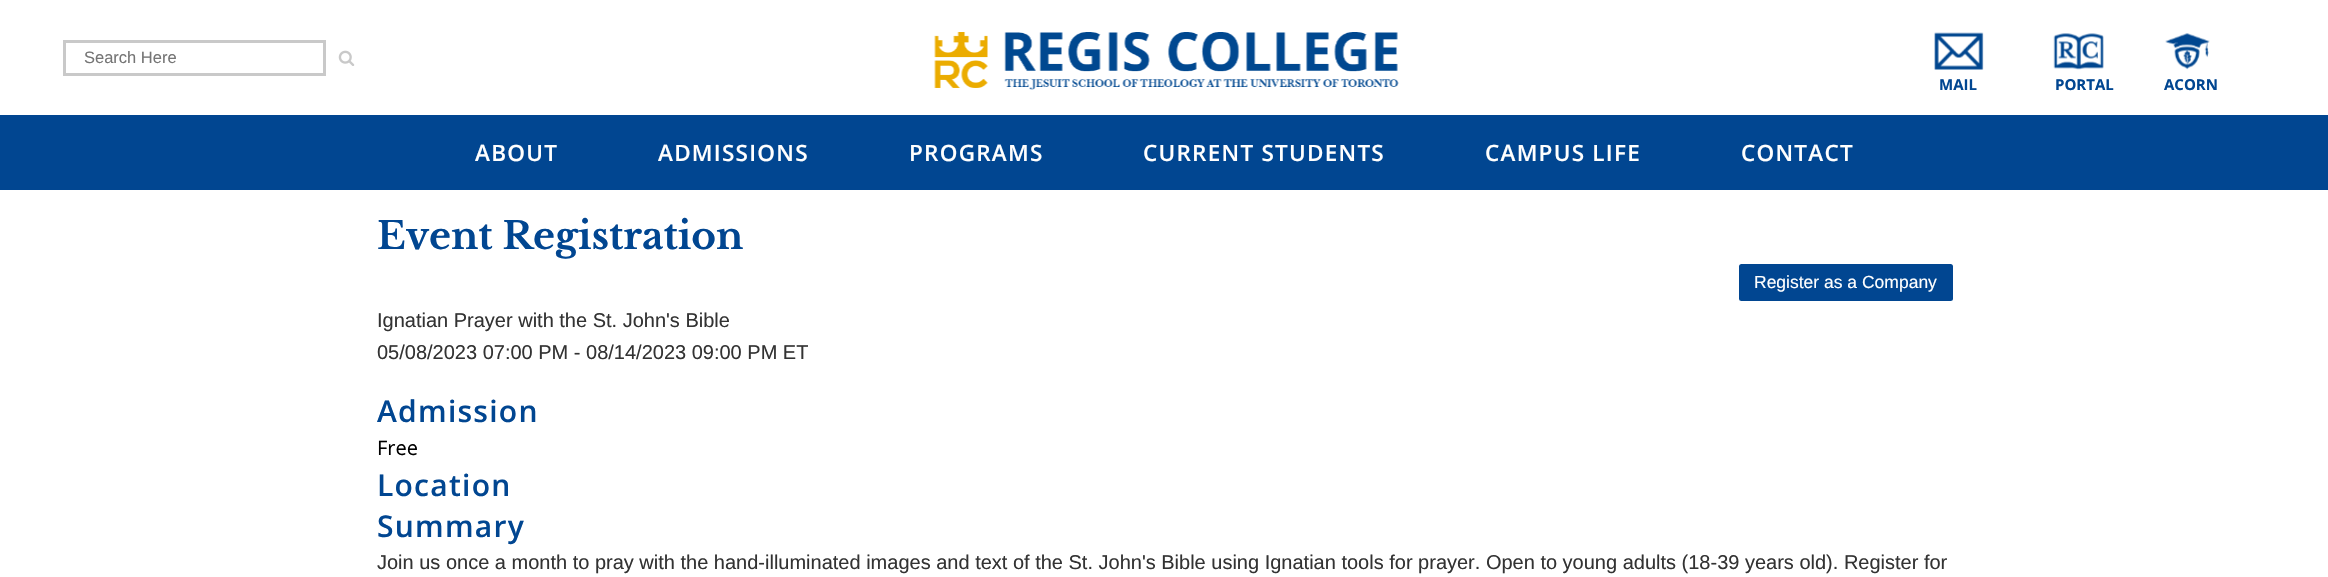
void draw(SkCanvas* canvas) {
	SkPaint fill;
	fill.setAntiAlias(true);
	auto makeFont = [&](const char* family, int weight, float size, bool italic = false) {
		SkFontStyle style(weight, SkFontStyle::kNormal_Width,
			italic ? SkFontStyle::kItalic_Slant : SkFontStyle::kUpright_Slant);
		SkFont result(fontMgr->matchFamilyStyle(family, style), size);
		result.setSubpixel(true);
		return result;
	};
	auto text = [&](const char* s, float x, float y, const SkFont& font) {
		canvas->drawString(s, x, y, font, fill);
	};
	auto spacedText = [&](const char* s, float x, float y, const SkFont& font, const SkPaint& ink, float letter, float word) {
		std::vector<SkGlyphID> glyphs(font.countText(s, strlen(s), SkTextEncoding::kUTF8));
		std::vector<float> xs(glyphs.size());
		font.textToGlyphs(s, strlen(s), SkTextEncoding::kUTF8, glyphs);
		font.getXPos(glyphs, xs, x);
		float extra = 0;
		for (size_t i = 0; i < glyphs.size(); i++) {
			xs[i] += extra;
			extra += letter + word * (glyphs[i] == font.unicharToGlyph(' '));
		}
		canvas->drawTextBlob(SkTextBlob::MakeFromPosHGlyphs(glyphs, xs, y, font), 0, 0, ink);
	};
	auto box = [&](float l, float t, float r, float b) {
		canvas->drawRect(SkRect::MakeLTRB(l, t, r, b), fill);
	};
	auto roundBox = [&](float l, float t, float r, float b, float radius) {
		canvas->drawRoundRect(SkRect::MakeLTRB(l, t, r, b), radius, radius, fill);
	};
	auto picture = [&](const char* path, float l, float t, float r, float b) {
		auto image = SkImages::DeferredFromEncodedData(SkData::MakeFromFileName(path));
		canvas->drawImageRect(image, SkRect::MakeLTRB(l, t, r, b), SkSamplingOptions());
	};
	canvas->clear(0xFFFFFFFF);
	fill.setStyle(SkPaint::kStroke_Style);
	fill.setStrokeWidth(3);
	fill.setColor(0xFFC9C9C9);
	canvas->drawRect(SkRect::MakeLTRB(64.5f, 41.5f, 324.5f, 74.5f), fill);
	picture("image0.png", 338, 50, 355, 66);
	picture("image1.png", 934, 32, 1399, 90);
	picture("image2.png", 1934, 32, 1984, 70);
	picture("image3.png", 2053, 33, 2104, 70);
	picture("image4.png", 2165, 33, 2210, 70);
	fill.setStyle(SkPaint::kFill_Style);
	fill.setColor(0xFF014691);
	box(0, 115, 2328, 190);
	roundBox(1739, 264, 1953, 301, 2.5f);
	auto font1 = makeFont("Liberation Sans", 400, 16.5f);
	fill.setColor(0xFF757575);
	text("Search Here", 84, 63, font1);
	auto font2 = makeFont("Open Sans", 700, 15);
	fill.setColor(0xFF014691);
	text("MAIL", 1939, 90, font2);
	text("PORTAL", 2055, 90, font2);
	text("ACORN", 2164, 90, font2);
	auto font3 = makeFont("Open Sans", 600, 22.5f);
	fill.setColor(0xFFFFFFFF);
	spacedText("ABOUT", 475, 161, font3, fill, 1.25f, 0);
	spacedText("ADMISSIONS", 658, 161, font3, fill, 1.25f, 0);
	spacedText("PROGRAMS", 909, 161, font3, fill, 1.25f, 0);
	spacedText("CURRENT STUDENTS", 1143, 161, font3, fill, 1.25f, 0);
	spacedText("CAMPUS LIFE", 1485, 161, font3, fill, 1.25f, 0);
	spacedText("CONTACT", 1741, 161, font3, fill, 1.25f, 0);
	auto font4 = makeFont("Libre Baskerville", 700, 37.5f);
	fill.setColor(0xFF014691);
	text("Event Registration", 377, 249, font4);
	auto font5 = makeFont("Liberation Sans", 400, 17.5f);
	fill.setColor(0xFFFFFFFF);
	text("Register as a Company", 1754, 288, font5);
	auto font6 = makeFont("Liberation Sans", 400, 20);
	fill.setColor(0xFF333333);
	text("Ignatian Prayer with the St. John's Bible", 377, 327, font6);
	text("05/08/2023 07:00 PM - 08/14/2023 09:00 PM ET", 377, 359, font6);
	auto font7 = makeFont("Open Sans", 600, 30);
	fill.setColor(0xFF014691);
	spacedText("Admission", 377, 422, font7, fill, 1.25f, 0);
	auto font8 = makeFont("Open Sans", 400, 20);
	fill.setColor(0xFF000000);
	text("Free", 377, 455, font8);
	fill.setColor(0xFF014691);
	spacedText("Location", 377, 496, font7, fill, 1.25f, 0);
	spacedText("Summary", 377, 537, font7, fill, 1.25f, 0);
	fill.setColor(0xFF333333);
	text("Join us once a month to pray with the hand-illuminated images and text of the St. John's Bible using Ignatian tools for prayer. Open to young adults (18-39 years old). Register for", 377, 569, font6);
}
